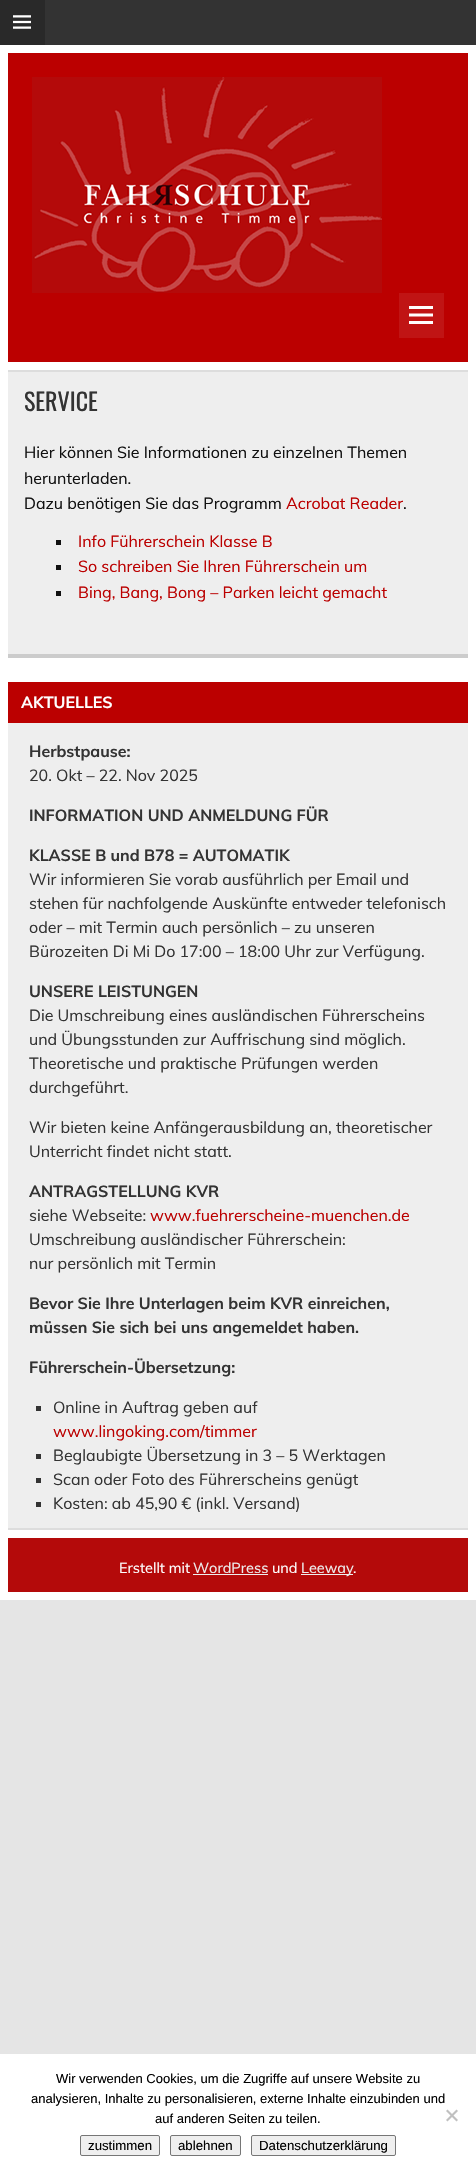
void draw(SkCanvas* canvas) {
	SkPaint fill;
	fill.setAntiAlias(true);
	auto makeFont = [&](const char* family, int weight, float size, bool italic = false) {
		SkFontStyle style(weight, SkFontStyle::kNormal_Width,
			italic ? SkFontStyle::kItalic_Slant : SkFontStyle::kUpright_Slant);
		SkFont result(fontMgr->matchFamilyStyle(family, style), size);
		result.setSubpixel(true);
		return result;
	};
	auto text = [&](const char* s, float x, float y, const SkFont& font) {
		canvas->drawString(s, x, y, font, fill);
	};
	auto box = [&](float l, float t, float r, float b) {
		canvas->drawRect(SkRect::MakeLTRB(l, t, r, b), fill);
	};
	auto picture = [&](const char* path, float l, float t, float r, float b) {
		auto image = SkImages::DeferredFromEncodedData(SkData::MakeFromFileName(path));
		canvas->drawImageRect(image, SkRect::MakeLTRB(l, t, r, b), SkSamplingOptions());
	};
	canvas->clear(0xFFE5E5E5);
	fill.setColor(0xFF333333);
	box(45, 0, 476, 45);
	fill.setColor(0xFF292929);
	box(0, 0, 45, 45);
	picture("image0.png", 13, 15, 31, 29);
	fill.setColor(0xFFFFFFFF);
	box(0, 45, 476, 1600);
	fill.setColor(0xFFBB0000);
	box(8, 53, 468, 362);
	picture("image1.png", 32, 77, 382, 293);
	fill.setColor(0xFFC01414);
	box(399, 293, 444, 338);
	picture("image2.png", 409, 306, 433, 324);
	fill.setColor(0xFFEEEEEE);
	box(8, 372, 468, 654);
	fill.setColor(0xFFDDDDDD);
	box(8, 370, 468, 372);
	fill.setColor(0xFFCCCCCC);
	box(8, 654, 468, 658);
	fill.setColor(0xFF111111);
	box(56, 540, 61, 545);
	box(56, 565, 61, 570);
	box(56, 591, 61, 596);
	fill.setColor(0xFFEEEEEE);
	box(8, 723, 468, 1528);
	fill.setColor(0xFFDDDDDD);
	box(8, 1528, 468, 1530);
	fill.setColor(0xFFBB0000);
	box(8, 682, 468, 723);
	fill.setColor(0xFF333333);
	box(36, 1406, 41, 1411);
	box(36, 1454, 41, 1459);
	box(36, 1478, 41, 1483);
	box(36, 1502, 41, 1507);
	fill.setColor(0xFFB40A0A);
	box(8, 1538, 468, 1592);
	fill.setColor(0xFFEEEEEE);
	box(193, 1574, 268, 1575);
	box(301, 1574, 353, 1575);
	fill.setColor(0xFFFFFFFF);
	box(0, 2054, 476, 2176);
	fill.setColor(0xFFC0C0C0);
	canvas->drawPath(SkPathBuilder().moveTo(456.5f, 2109.5f).lineTo(458, 2111).lineTo(447.5f, 2121.5f).lineTo(446, 2120).close().detach(), fill);
	canvas->drawPath(SkPathBuilder().moveTo(446, 2111).lineTo(447.5f, 2109.5f).lineTo(458, 2120).lineTo(456.5f, 2121.5f).close().detach(), fill);
	fill.setColor(0xFFEFEFEF);
	canvas->drawRoundRect(SkRect::MakeLTRB(80.5f, 2135.5f, 159.5f, 2155.5f), 1.5f, 1.5f, fill);
	fill.setStyle(SkPaint::kStroke_Style);
	fill.setStrokeWidth(1);
	fill.setColor(0xFF767676);
	canvas->drawRoundRect(SkRect::MakeLTRB(80.5f, 2135.5f, 159.5f, 2155.5f), 1.5f, 1.5f, fill);
	fill.setStyle(SkPaint::kFill_Style);
	fill.setColor(0xFFEFEFEF);
	canvas->drawRoundRect(SkRect::MakeLTRB(170.5f, 2135.5f, 240.5f, 2155.5f), 1.5f, 1.5f, fill);
	fill.setStyle(SkPaint::kStroke_Style);
	fill.setColor(0xFF767676);
	canvas->drawRoundRect(SkRect::MakeLTRB(170.5f, 2135.5f, 240.5f, 2155.5f), 1.5f, 1.5f, fill);
	fill.setStyle(SkPaint::kFill_Style);
	fill.setColor(0xFFEFEFEF);
	canvas->drawRoundRect(SkRect::MakeLTRB(251.5f, 2135.5f, 395.5f, 2155.5f), 1.5f, 1.5f, fill);
	fill.setStyle(SkPaint::kStroke_Style);
	fill.setColor(0xFF767676);
	canvas->drawRoundRect(SkRect::MakeLTRB(251.5f, 2135.5f, 395.5f, 2155.5f), 1.5f, 1.5f, fill);
	auto font1 = makeFont("Oswald", 400, 24);
	fill.setStyle(SkPaint::kFill_Style);
	fill.setColor(0xFF333333);
	text("SERVICE", 24, 411, font1);
	auto font2 = makeFont("Muli", 400, 16);
	fill.setColor(0xFF111111);
	text("Hier können Sie Informationen zu einzelnen Themen", 24, 458, font2);
	text("herunterladen.", 24, 484, font2);
	text("Dazu benötigen Sie das Programm", 24, 509, font2);
	fill.setColor(0xFFBB0000);
	text("Acrobat Reader", 286, 509, font2);
	fill.setColor(0xFF111111);
	text(".", 403, 509, font2);
	fill.setColor(0xFFBB0000);
	text("Info Führerschein Klasse B", 78, 547, font2);
	text("So schreiben Sie Ihren Führerschein um", 78, 572, font2);
	text("Bing, Bang, Bong – Parken leicht gemacht", 78, 598, font2);
	auto font3 = makeFont("Muli", 700, 16);
	fill.setColor(0xFFFFFFFF);
	text("AKTUELLES", 21, 708, font3);
	fill.setColor(0xFF333333);
	text("Herbstpause:", 29, 757, font3);
	text("20. Okt – 22. Nov 2025", 29, 781, font2);
	text("INFORMATION UND ANMELDUNG FÜR", 29, 821, font3);
	text("KLASSE B und B78 = AUTOMATIK", 29, 861, font3);
	text("Wir informieren Sie vorab ausführlich per Email und", 29, 885, font2);
	text("stehen für nachfolgende Auskünfte entweder telefonisch", 29, 909, font2);
	text("oder – mit Termin auch persönlich – zu unseren", 29, 933, font2);
	text("Bürozeiten Di Mi Do 17:00 – 18:00 Uhr zur Verfügung.", 29, 957, font2);
	text("UNSERE LEISTUNGEN", 29, 997, font3);
	text("Die Umschreibung eines ausländischen Führerscheins", 29, 1021, font2);
	text("und Übungsstunden zur Auffrischung sind möglich.", 29, 1045, font2);
	text("Theoretische und praktische Prüfungen werden", 29, 1069, font2);
	text("durchgeführt.", 29, 1093, font2);
	text("Wir bieten keine Anfängerausbildung an, theoretischer", 29, 1133, font2);
	text("Unterricht findet nicht statt.", 29, 1157, font2);
	text("ANTRAGSTELLUNG KVR", 29, 1197, font3);
	text("siehe Webseite:", 29, 1221, font2);
	fill.setColor(0xFFBB0000);
	text("www.fuehrerscheine-muenchen.de", 150, 1221, font2);
	fill.setColor(0xFF333333);
	text("Umschreibung ausländischer Führerschein:", 29, 1245, font2);
	text("nur persönlich mit Termin", 29, 1269, font2);
	text("Bevor Sie Ihre Unterlagen beim KVR einreichen,", 29, 1309, font3);
	text("müssen Sie sich bei uns angemeldet haben.", 29, 1333, font3);
	text("Führerschein-Übersetzung:", 29, 1373, font3);
	text("Online in Auftrag geben auf", 53, 1413, font2);
	fill.setColor(0xFFBB0000);
	text("www.lingoking.com/timmer", 53, 1437, font2);
	fill.setColor(0xFF333333);
	text("Beglaubigte Übersetzung in 3 – 5 Werktagen", 53, 1461, font2);
	text("Scan oder Foto des Führerscheins genügt", 53, 1485, font2);
	text("Kosten: ab 45,90 € (inkl. Versand)", 53, 1509, font2);
	auto font4 = makeFont("Muli", 400, 14.5f);
	fill.setColor(0xFFFFFFFF);
	text("Erstellt mit", 119, 1573, font4);
	fill.setColor(0xFFEEEEEE);
	text("WordPress", 193, 1573, font4);
	fill.setColor(0xFFFFFFFF);
	text("und", 272, 1573, font4);
	fill.setColor(0xFFEEEEEE);
	text("Leeway", 301, 1573, font4);
	fill.setColor(0xFFFFFFFF);
	text(".", 353, 1573, font4);
	auto font5 = makeFont("Liberation Sans", 400, 13);
	fill.setColor(0xFF000000);
	text("Wir verwenden Cookies, um die Zugriffe auf unsere Website zu", 56, 2083, font5);
	text("analysieren, Inhalte zu personalisieren, externe Inhalte einzubinden und", 31, 2103, font5);
	text("auf anderen Seiten zu teilen.", 155, 2123, font5);
	auto font6 = makeFont("Liberation Sans", 400, 13.25f);
	text("zustimmen", 88, 2150, font6);
	text("ablehnen", 178, 2150, font6);
	text("Datenschutzerklärung", 259, 2150, font6);
}
